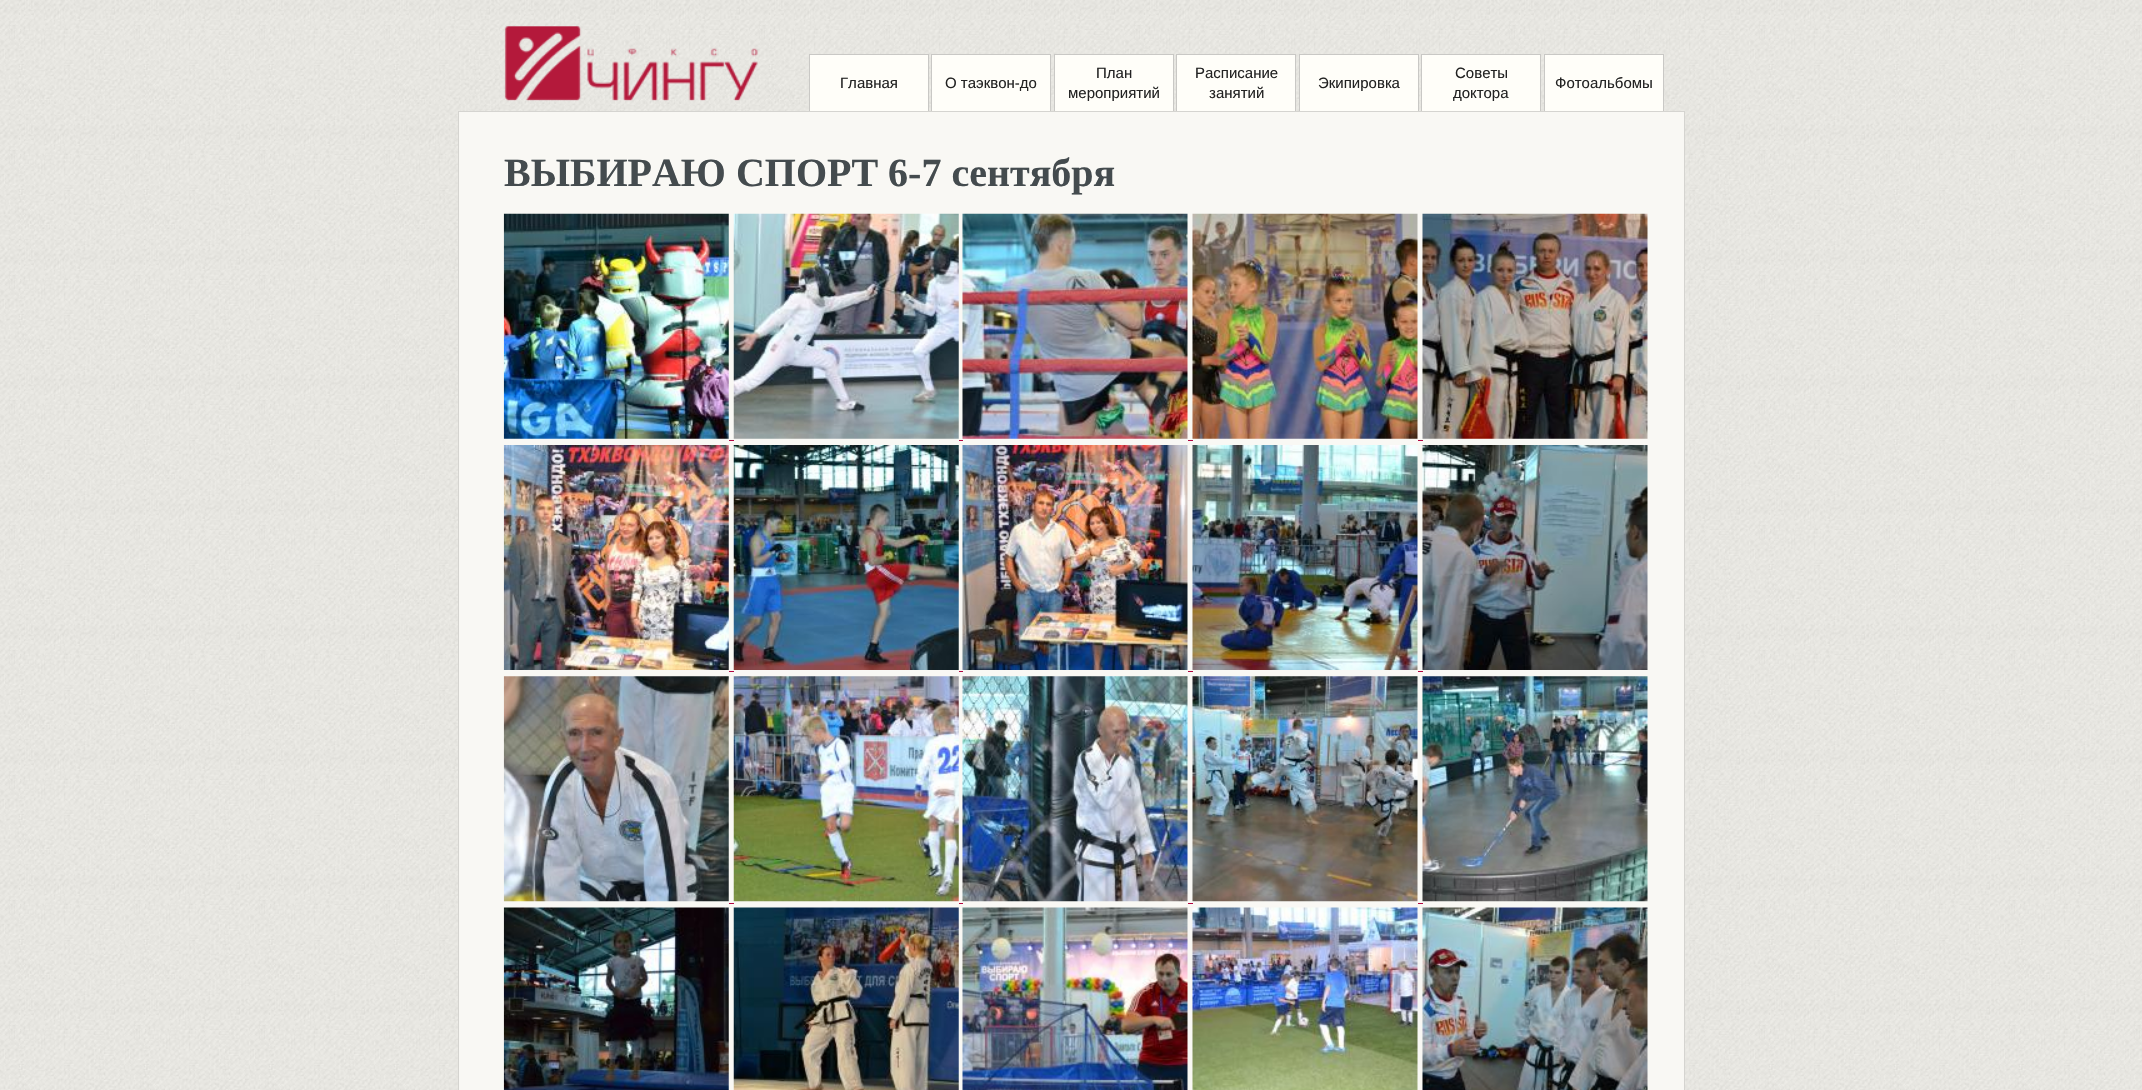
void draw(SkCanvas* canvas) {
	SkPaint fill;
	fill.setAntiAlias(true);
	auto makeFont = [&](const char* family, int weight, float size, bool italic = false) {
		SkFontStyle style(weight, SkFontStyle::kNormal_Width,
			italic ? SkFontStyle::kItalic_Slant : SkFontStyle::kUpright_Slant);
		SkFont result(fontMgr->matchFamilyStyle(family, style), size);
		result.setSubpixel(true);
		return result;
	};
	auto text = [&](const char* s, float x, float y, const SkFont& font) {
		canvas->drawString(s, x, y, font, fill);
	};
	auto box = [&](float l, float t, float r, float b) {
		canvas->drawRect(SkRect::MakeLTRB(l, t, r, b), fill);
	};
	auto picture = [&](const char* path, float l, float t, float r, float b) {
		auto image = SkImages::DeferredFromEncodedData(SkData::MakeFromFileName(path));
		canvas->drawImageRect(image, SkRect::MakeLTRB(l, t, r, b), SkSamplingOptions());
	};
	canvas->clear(0xFFFFFFFF);
	picture("image0.png", 0, 0, 2142, 1090);
	picture("image1.png", 504, 26, 758, 101);
	fill.setColor(0xFFFFFEF9);
	box(810, 55, 928, 111);
	fill.setColor(0xFFC9C8C5);
	box(809, 54, 929, 55);
	box(928, 54, 929, 111);
	box(809, 54, 810, 111);
	fill.setColor(0xFFFFFEF9);
	box(932, 55, 1050, 111);
	fill.setColor(0xFFC9C8C5);
	box(931, 54, 1051, 55);
	box(1050, 54, 1051, 111);
	box(931, 54, 932, 111);
	fill.setColor(0xFFFFFEF9);
	box(1055, 55, 1173, 111);
	fill.setColor(0xFFC9C8C5);
	box(1054, 54, 1174, 55);
	box(1173, 54, 1174, 111);
	box(1054, 54, 1055, 111);
	fill.setColor(0xFFFFFEF9);
	box(1177, 55, 1295, 111);
	fill.setColor(0xFFC9C8C5);
	box(1176, 54, 1296, 55);
	box(1295, 54, 1296, 111);
	box(1176, 54, 1177, 111);
	fill.setColor(0xFFFFFEF9);
	box(1300, 55, 1418, 111);
	fill.setColor(0xFFC9C8C5);
	box(1299, 54, 1419, 55);
	box(1418, 54, 1419, 111);
	box(1299, 54, 1300, 111);
	fill.setColor(0xFFFFFEF9);
	box(1422, 55, 1540, 111);
	fill.setColor(0xFFC9C8C5);
	box(1421, 54, 1541, 55);
	box(1540, 54, 1541, 111);
	box(1421, 54, 1422, 111);
	fill.setColor(0xFFFFFEF9);
	box(1545, 55, 1663, 111);
	fill.setColor(0xFFC9C8C5);
	box(1544, 54, 1664, 55);
	box(1663, 54, 1664, 111);
	box(1544, 54, 1545, 111);
	fill.setColor(0xFFF9F8F4);
	canvas->drawRect(SkRect::MakeLTRB(458.5f, 111.5f, 1684.5f, 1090.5f), fill);
	fill.setStyle(SkPaint::kStroke_Style);
	fill.setStrokeWidth(1);
	fill.setColor(0xFFD5D4D0);
	canvas->drawRect(SkRect::MakeLTRB(458.5f, 111.5f, 1684.5f, 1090.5f), fill);
	picture("image2.png", 503, 213, 729, 439);
	picture("image3.png", 733, 213, 959, 439);
	picture("image4.png", 962, 213, 1188, 439);
	picture("image5.png", 1192, 213, 1418, 439);
	picture("image6.png", 1422, 213, 1648, 439);
	fill.setStyle(SkPaint::kFill_Style);
	fill.setColor(0xFFB1053F);
	box(729, 440, 734, 441);
	box(959, 440, 963, 441);
	box(1188, 440, 1193, 441);
	box(1418, 440, 1423, 441);
	picture("image7.png", 503, 445, 729, 670);
	picture("image8.png", 733, 445, 959, 670);
	picture("image9.png", 962, 445, 1188, 670);
	picture("image10.png", 1192, 445, 1418, 670);
	picture("image11.png", 1422, 445, 1648, 670);
	box(729, 671, 734, 672);
	box(959, 671, 963, 672);
	box(1188, 671, 1193, 672);
	box(1418, 671, 1423, 672);
	picture("image12.png", 503, 676, 729, 902);
	picture("image13.png", 733, 676, 959, 902);
	picture("image14.png", 962, 676, 1188, 902);
	picture("image15.png", 1192, 676, 1418, 902);
	picture("image16.png", 1422, 676, 1648, 902);
	box(729, 903, 734, 904);
	box(959, 903, 963, 904);
	box(1188, 903, 1193, 904);
	box(1418, 903, 1423, 904);
	picture("image17.png", 503, 907, 729, 1090);
	picture("image18.png", 733, 907, 959, 1090);
	picture("image19.png", 962, 907, 1188, 1090);
	picture("image20.png", 1192, 907, 1418, 1090);
	picture("image21.png", 1422, 907, 1648, 1090);
	auto font1 = makeFont("Liberation Sans", 400, 15);
	fill.setColor(0xFF232323);
	text("Главная", 840, 88, font1);
	text("О таэквон-до", 945, 88, font1);
	text("План", 1096, 78, font1);
	text("мероприятий", 1068, 98, font1);
	text("Расписание", 1195, 78, font1);
	text("занятий", 1209, 98, font1);
	text("Экипировка", 1318, 88, font1);
	text("Советы", 1455, 78, font1);
	text("доктора", 1453, 98, font1);
	text("Фотоальбомы", 1555, 88, font1);
	auto font2 = makeFont("Liberation Serif", 700, 40);
	fill.setColor(0xFF444B4E);
	text("ВЫБИРАЮ СПОРТ 6-7 сентября", 504, 186, font2);
}
